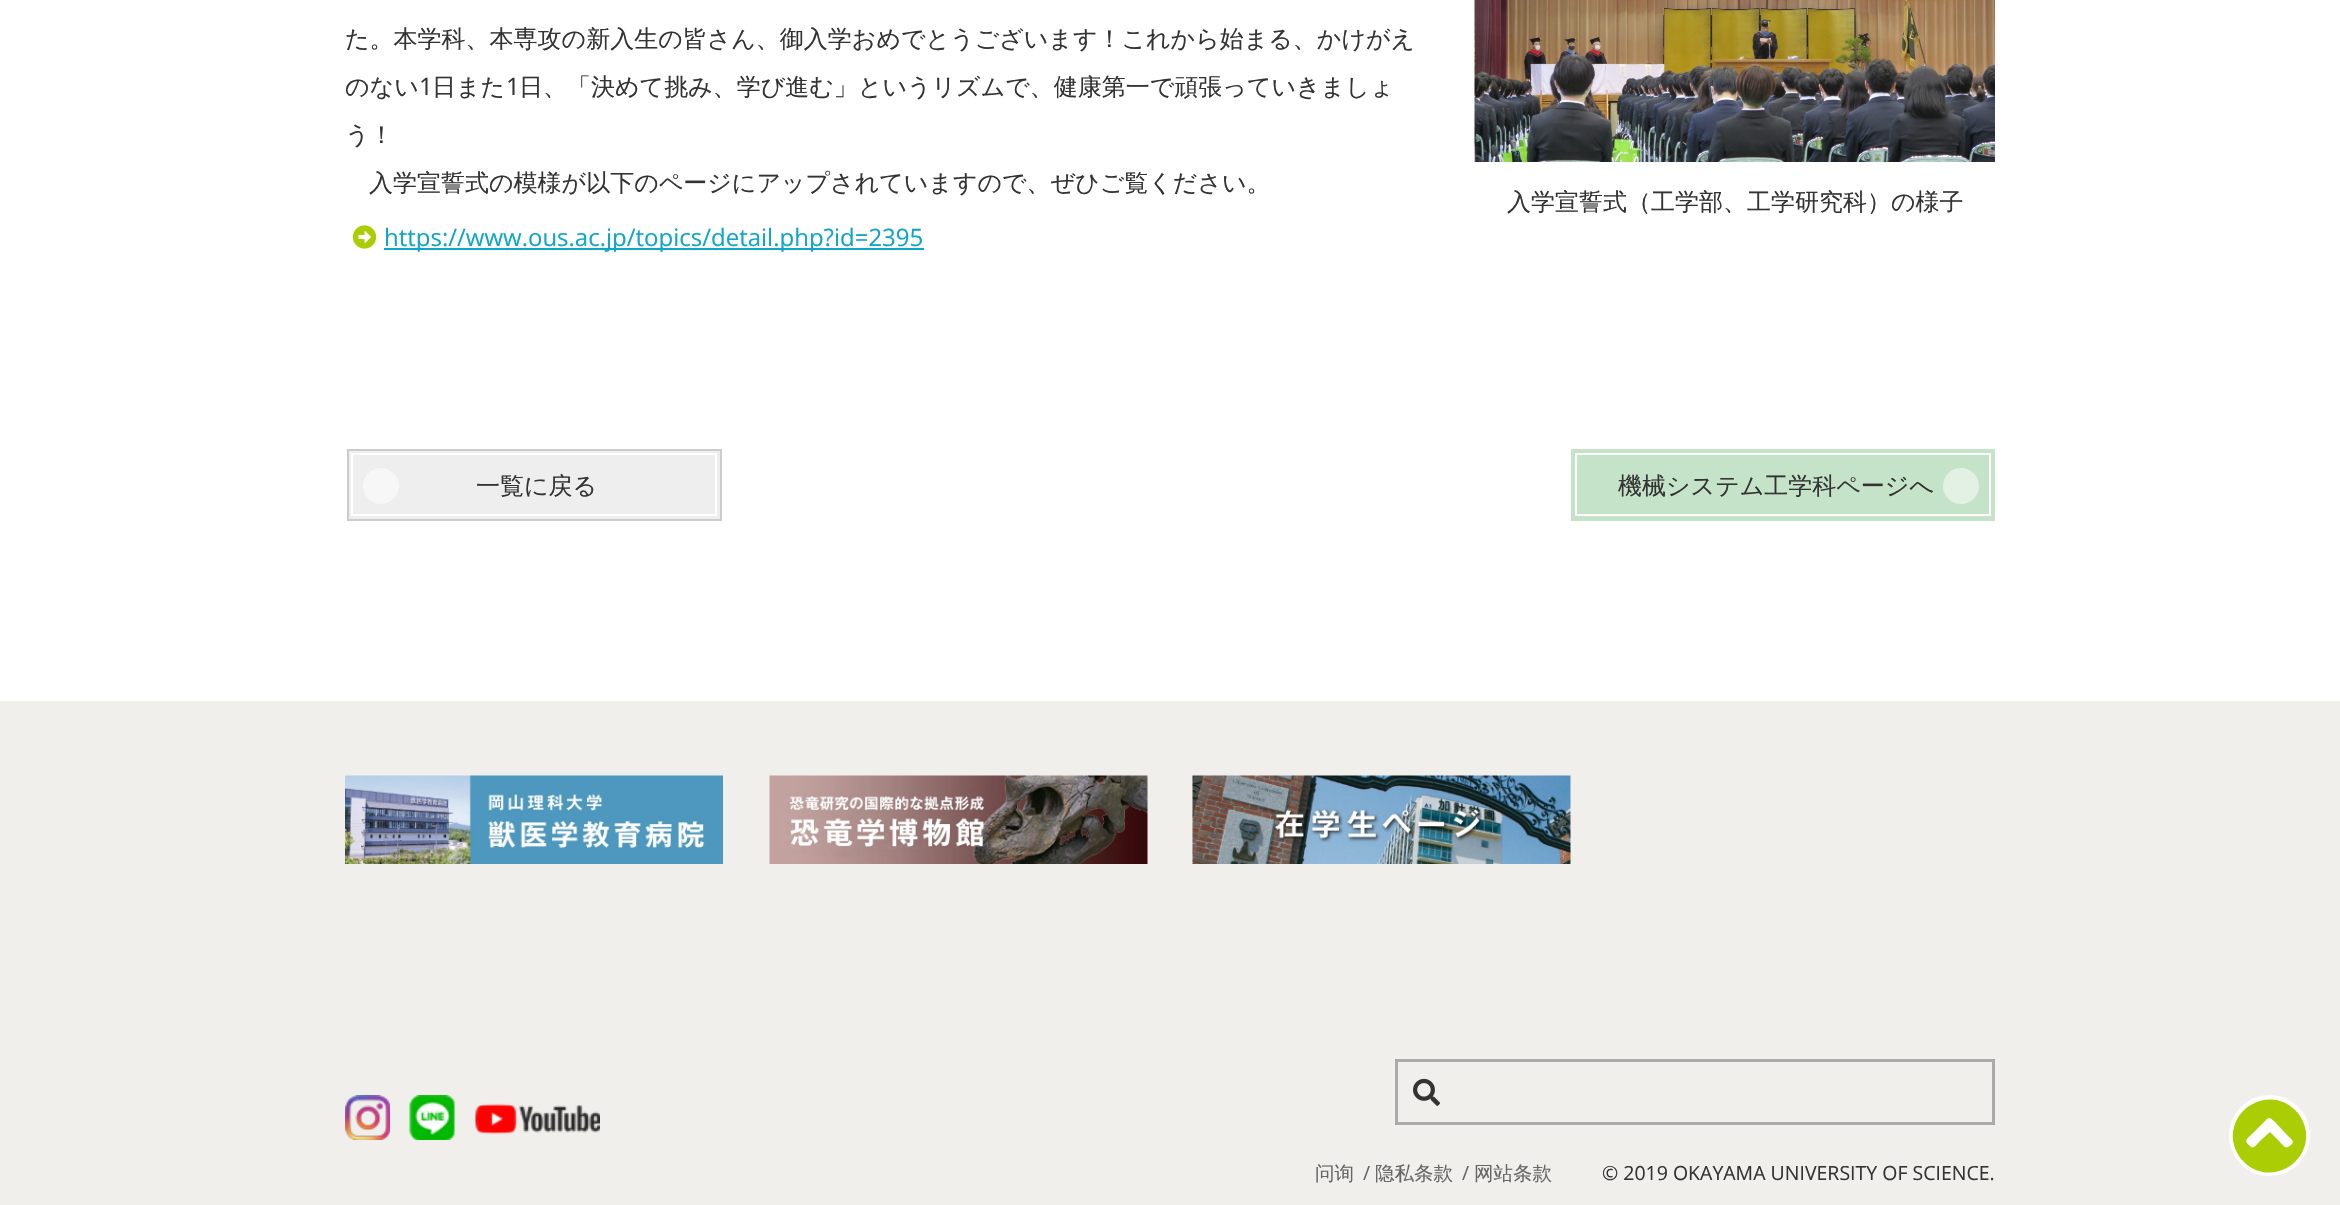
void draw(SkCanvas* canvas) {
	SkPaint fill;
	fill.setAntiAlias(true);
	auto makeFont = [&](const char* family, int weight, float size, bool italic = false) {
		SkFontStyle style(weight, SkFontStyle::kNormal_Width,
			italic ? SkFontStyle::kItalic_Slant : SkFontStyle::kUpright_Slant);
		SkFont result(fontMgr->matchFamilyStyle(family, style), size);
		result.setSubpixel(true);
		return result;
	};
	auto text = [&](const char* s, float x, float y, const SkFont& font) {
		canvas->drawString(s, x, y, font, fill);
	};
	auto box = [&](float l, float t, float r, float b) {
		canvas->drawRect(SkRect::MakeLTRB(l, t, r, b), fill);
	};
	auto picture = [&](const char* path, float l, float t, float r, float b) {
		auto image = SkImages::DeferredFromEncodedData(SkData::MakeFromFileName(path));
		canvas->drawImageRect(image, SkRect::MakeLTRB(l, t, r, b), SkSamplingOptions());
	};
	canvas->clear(0xFFFFFFFF);
	picture("image0.png", 352, 225, 377, 249);
	fill.setColor(0xFF0DA5C9);
	box(384, 248, 924, 250);
	picture("image1.png", 1474, 0, 1995, 162);
	fill.setColor(0xFFEEEEEE);
	canvas->drawRect(SkRect::MakeLTRB(348, 450, 721, 520), fill);
	fill.setStyle(SkPaint::kStroke_Style);
	fill.setStrokeWidth(2);
	fill.setColor(0xFFCCCCCC);
	canvas->drawRect(SkRect::MakeLTRB(348, 450, 721, 520), fill);
	fill.setColor(0xFFFFFFFF);
	canvas->drawRect(SkRect::MakeLTRB(352, 454, 716, 515), fill);
	fill.setStyle(SkPaint::kFill_Style);
	fill.setColor(0xFFF7F7F7);
	canvas->drawCircle(381, 486, 18, fill);
	fill.setColor(0xFFC5E3C8);
	box(1571, 449, 1995, 521);
	fill.setStyle(SkPaint::kStroke_Style);
	fill.setColor(0xFFFFFFFF);
	canvas->drawRect(SkRect::MakeLTRB(1576, 454, 1990, 515), fill);
	fill.setStyle(SkPaint::kFill_Style);
	fill.setColor(0xFFE2F1E4);
	canvas->drawCircle(1961, 486, 18, fill);
	fill.setColor(0xFFF1EFEC);
	box(0, 701, 2340, 1205);
	picture("image2.png", 345, 775, 723, 864);
	picture("image3.png", 769, 775, 1148, 864);
	picture("image4.png", 1192, 775, 1571, 864);
	picture("image5.png", 345, 1095, 390, 1140);
	picture("image6.png", 409, 1095, 455, 1140);
	picture("image7.png", 475, 1103, 600, 1135);
	fill.setStyle(SkPaint::kStroke_Style);
	fill.setStrokeWidth(3);
	fill.setColor(0xFFAAAAAA);
	canvas->drawRect(SkRect::MakeLTRB(1396.5f, 1060.5f, 1993.5f, 1123.5f), fill);
	picture("image8.png", 1413, 1078, 1440, 1106);
	fill.setStyle(SkPaint::kFill_Style);
	fill.setColor(0xFFFFFFFF);
	canvas->drawCircle(2269.5f, 1135.5f, 39, fill);
	fill.setStyle(SkPaint::kStroke_Style);
	canvas->drawCircle(2269.5f, 1135.5f, 39, fill);
	fill.setStyle(SkPaint::kFill_Style);
	fill.setColor(0xFFABCD04);
	canvas->drawPath(SkPathBuilder().moveTo(2244, 1162).cubicTo(2238, 1156, 2234, 1148, 2233, 1140).cubicTo(2230, 1106, 2271, 1086, 2295, 1110).cubicTo(2301, 1116, 2305, 1124, 2306, 1132).cubicTo(2309, 1166, 2268, 1186, 2244, 1162).close().moveTo(2267, 1119).lineTo(2254, 1132).cubicTo(2247, 1139, 2243, 1140, 2250, 1146).cubicTo(2253, 1150, 2257, 1144, 2260, 1141).lineTo(2270, 1132).lineTo(2279, 1141).cubicTo(2281, 1143, 2285, 1149, 2288, 1147).lineTo(2291, 1145).cubicTo(2295, 1141, 2292, 1140, 2288, 1136).lineTo(2275, 1122).cubicTo(2273, 1121, 2270, 1116, 2267, 1119).close().detach(), fill);
	auto font1 = makeFont("WenQuanYi Zen Hei", 500, 24);
	fill.setColor(0xFF333333);
	text("た。本学科、本専攻の新入生の皆さん、御入学おめでとうございます！これから始まる、かけがえ", 345, 47, font1);
	text("のない", 345, 95, font1);
	auto font2 = makeFont("Open Sans", 400, 24);
	text("1", 419, 95, font2);
	text("日また", 432, 95, font1);
	text("1", 506, 95, font2);
	text("日、「決めて挑み、学び進む」というリズムで、健康第一で頑張っていきましょ", 519, 95, font1);
	text("う！", 345, 143, font1);
	text("入学宣誓式の模様が以下のページにアップされていますので、ぜひご覧ください。", 369, 191, font1);
	fill.setColor(0xFF0DA5C9);
	text("https://www.ous.ac.jp/topics/detail.php?id=2395", 384, 246, font2);
	fill.setColor(0xFF333333);
	text("入学宣誓式（工学部、工学研究科）の様子", 1507, 210, font1);
	text("一覧に戻る", 476, 494, font1);
	text("機械システム工学科ページへ", 1618, 494, font1);
	auto font3 = makeFont("WenQuanYi Zen Hei", 500, 19.5f);
	fill.setColor(0xFF666666);
	text("问询", 1315, 1180, font3);
	auto font4 = makeFont("Open Sans", 400, 19.5f);
	text("/", 1363, 1180, font4);
	text("隐私条款", 1375, 1180, font3);
	text("/", 1462, 1180, font4);
	text("网站条款", 1474, 1180, font3);
	fill.setColor(0xFF333333);
	text("© 2019 OKAYAMA UNIVERSITY OF SCIENCE.", 1602, 1180, font4);
}
